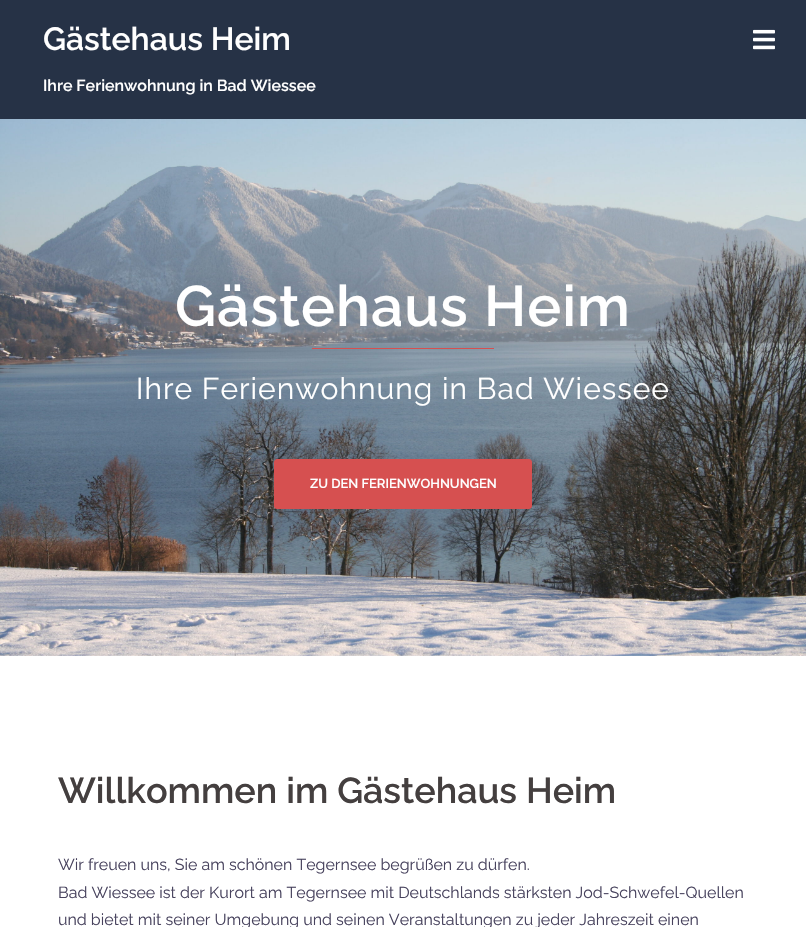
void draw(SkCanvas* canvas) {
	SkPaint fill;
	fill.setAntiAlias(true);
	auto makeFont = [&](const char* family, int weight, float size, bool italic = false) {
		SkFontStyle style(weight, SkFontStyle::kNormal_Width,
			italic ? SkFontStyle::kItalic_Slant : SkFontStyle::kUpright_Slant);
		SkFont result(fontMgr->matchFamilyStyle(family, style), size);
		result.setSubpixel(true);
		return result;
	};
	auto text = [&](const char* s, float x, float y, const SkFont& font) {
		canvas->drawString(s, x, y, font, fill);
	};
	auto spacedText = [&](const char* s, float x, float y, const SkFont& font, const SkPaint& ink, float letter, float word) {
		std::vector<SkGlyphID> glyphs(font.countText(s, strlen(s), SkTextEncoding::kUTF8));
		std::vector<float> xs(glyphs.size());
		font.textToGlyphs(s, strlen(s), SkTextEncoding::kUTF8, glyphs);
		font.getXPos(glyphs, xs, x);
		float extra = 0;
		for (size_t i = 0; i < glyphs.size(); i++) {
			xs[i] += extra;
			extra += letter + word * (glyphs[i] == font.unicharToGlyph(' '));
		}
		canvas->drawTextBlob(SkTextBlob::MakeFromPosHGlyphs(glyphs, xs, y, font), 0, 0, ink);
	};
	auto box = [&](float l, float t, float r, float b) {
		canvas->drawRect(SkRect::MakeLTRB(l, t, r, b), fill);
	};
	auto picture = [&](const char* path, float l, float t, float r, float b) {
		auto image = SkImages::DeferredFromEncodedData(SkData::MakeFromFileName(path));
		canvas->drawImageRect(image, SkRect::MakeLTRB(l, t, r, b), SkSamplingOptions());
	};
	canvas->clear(0xFFFFFFFF);
	fill.setColor(0xFF263246);
	box(0, 0, 806, 119);
	picture("image0.png", 753, 29, 775, 50);
	picture("image1.png", 0, 119, 806, 656);
	fill.setColor(0xFFD65050);
	box(312, 348, 494, 349);
	canvas->drawRoundRect(SkRect::MakeLTRB(274.5f, 459.5f, 531.5f, 508.5f), 2.5f, 2.5f, fill);
	fill.setStyle(SkPaint::kStroke_Style);
	fill.setStrokeWidth(1);
	canvas->drawRoundRect(SkRect::MakeLTRB(274.5f, 459.5f, 531.5f, 508.5f), 2.5f, 2.5f, fill);
	auto font1 = makeFont("Raleway", 600, 32);
	fill.setStyle(SkPaint::kFill_Style);
	fill.setColor(0xFFFFFFFF);
	text("Gästehaus Heim", 43, 50, font1);
	auto font2 = makeFont("Raleway", 600, 16);
	text("Ihre Ferienwohnung in Bad Wiessee", 43, 91, font2);
	auto font3 = makeFont("Raleway", 600, 57);
	spacedText("Gästehaus Heim", 175, 326, font3, fill, 1, 0);
	auto font4 = makeFont("Raleway", 400, 30);
	spacedText("Ihre Ferienwohnung in Bad Wiessee", 136, 399, font4, fill, 1, 0);
	auto font5 = makeFont("Raleway", 600, 13);
	text("ZU DEN FERIENWOHNUNGEN", 310, 488, font5);
	auto font6 = makeFont("Raleway", 600, 36);
	fill.setColor(0xFF443F3F);
	text("Willkommen im Gästehaus Heim", 58, 803, font6);
	auto font7 = makeFont("Raleway", 400, 16);
	fill.setColor(0xFF47425D);
	text("Wir freuen uns, Sie am schönen Tegernsee begrüßen zu dürfen.", 58, 870, font7);
	text("Bad Wiessee ist der Kurort am Tegernsee mit Deutschlands stärksten Jod-Schwefel-Quellen", 58, 898, font7);
	text("und bietet mit seiner Umgebung und seinen Veranstaltungen zu jeder Jahreszeit einen", 58, 925, font7);
}
